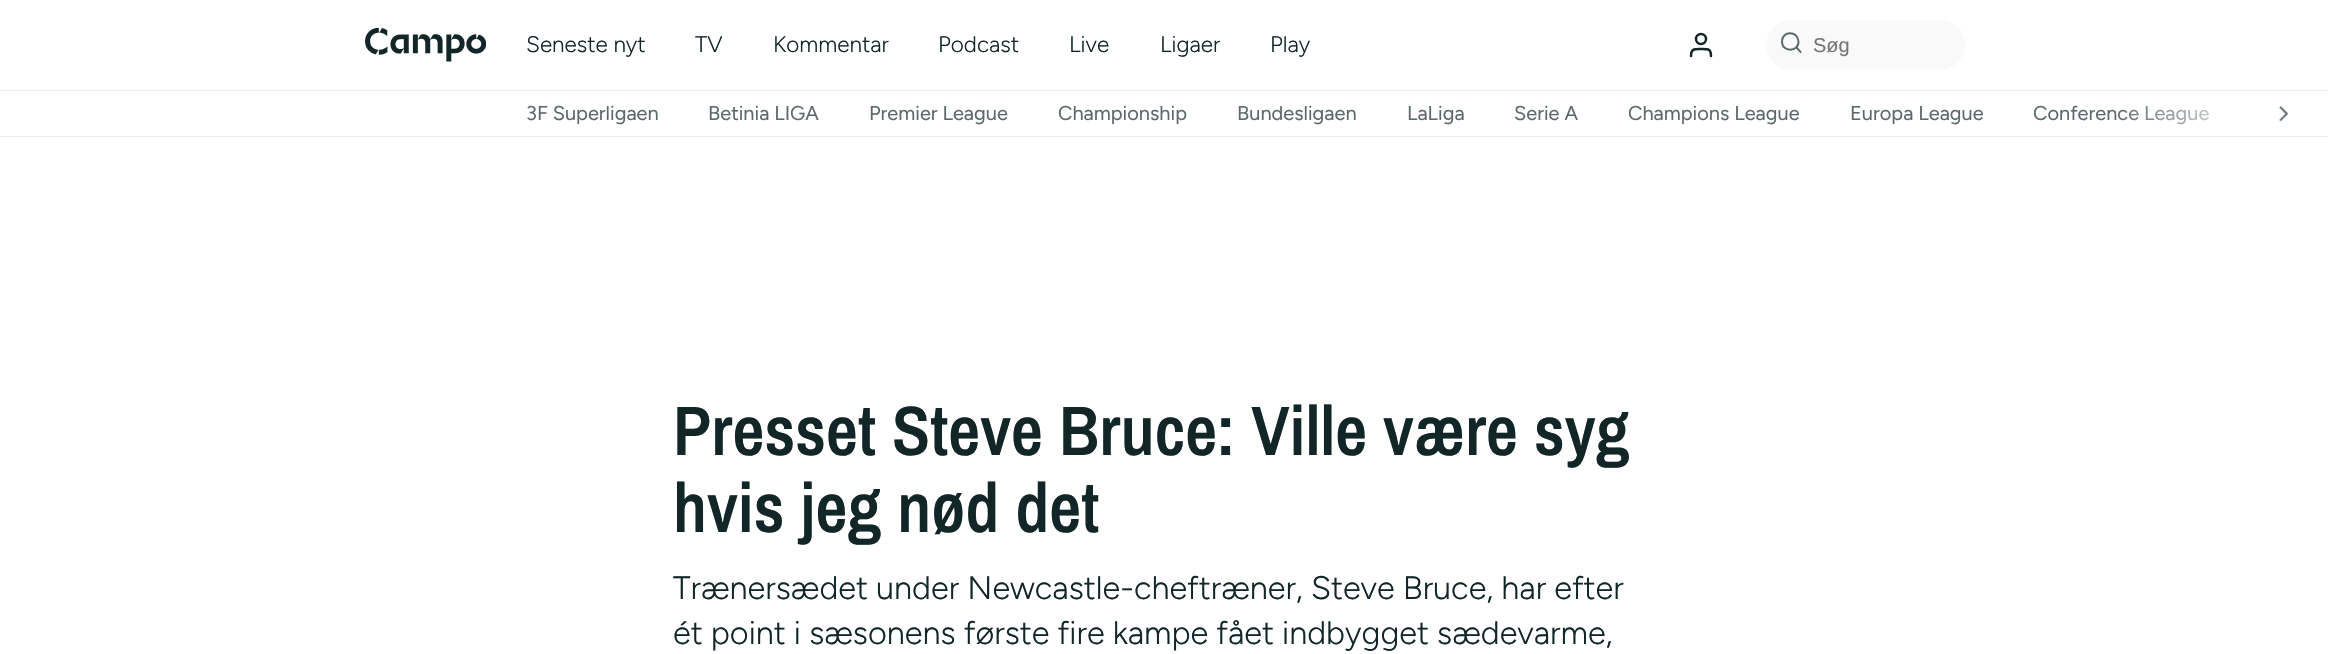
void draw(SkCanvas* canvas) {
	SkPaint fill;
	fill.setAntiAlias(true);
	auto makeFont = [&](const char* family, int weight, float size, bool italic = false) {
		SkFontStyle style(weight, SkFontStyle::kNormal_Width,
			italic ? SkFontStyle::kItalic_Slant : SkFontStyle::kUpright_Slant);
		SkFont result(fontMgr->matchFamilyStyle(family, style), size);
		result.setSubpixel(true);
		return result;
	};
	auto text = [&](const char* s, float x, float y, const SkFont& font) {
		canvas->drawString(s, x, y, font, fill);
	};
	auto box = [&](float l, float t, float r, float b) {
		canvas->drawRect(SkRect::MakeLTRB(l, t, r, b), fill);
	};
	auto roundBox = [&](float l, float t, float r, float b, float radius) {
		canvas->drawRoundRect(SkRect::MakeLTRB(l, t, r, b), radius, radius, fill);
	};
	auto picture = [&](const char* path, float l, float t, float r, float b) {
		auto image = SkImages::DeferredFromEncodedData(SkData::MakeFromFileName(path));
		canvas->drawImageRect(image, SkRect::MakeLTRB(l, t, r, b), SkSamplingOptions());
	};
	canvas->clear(0xFFFFFFFF);
	fill.setColor(0xFFEBEEEE);
	box(0, 136, 2328, 137);
	picture("image0.png", 365, 28, 486, 62);
	fill.setStyle(SkPaint::kStroke_Style);
	fill.setStrokeWidth(2.5f);
	fill.setStrokeCap(SkPaint::kRound_Cap);
	fill.setStrokeJoin(SkPaint::kRound_Join);
	fill.setColor(0xFF122527);
	canvas->drawPath(SkPathBuilder().moveTo(1711, 56).cubicTo(1711, 48.5f, 1708, 49, 1701, 49).cubicTo(1694.5f, 49, 1691, 48.5f, 1691, 56).detach(), fill);
	fill.setStrokeCap(SkPaint::kButt_Cap);
	fill.setStrokeJoin(SkPaint::kMiter_Join);
	canvas->drawCircle(1701, 39, 5, fill);
	fill.setStyle(SkPaint::kFill_Style);
	fill.setColor(0xFFF9F9F9);
	roundBox(1766, 20, 1965, 70, 25);
	fill.setStyle(SkPaint::kStroke_Style);
	fill.setStrokeWidth(1.9f);
	fill.setStrokeCap(SkPaint::kSquare_Cap);
	fill.setStrokeJoin(SkPaint::kRound_Join);
	fill.setColor(0xFF5C686A);
	canvas->drawPath(SkPathBuilder().moveTo(1796.5f, 47.5f).lineTo(1800.5f, 52).detach(), fill);
	fill.setStrokeCap(SkPaint::kRound_Cap);
	canvas->drawPath(SkPathBuilder().moveTo(1782, 41.5f).cubicTo(1782, 53, 1799, 52, 1798.5f, 41.5f).cubicTo(1798, 30.5f, 1782, 30.5f, 1782, 41.5f).close().detach(), fill);
	fill.setStyle(SkPaint::kFill_Style);
	fill.setColor(0xFFEBEEEE);
	box(0, 90, 2328, 91);
	picture("image1.png", 2278, 106, 2288, 122);
	auto font1 = makeFont("Figtree", 300, 22.5f);
	fill.setColor(0xFF122527);
	text("Seneste nyt", 526, 52, font1);
	text("TV", 695, 52, font1);
	text("Kommentar", 773, 52, font1);
	text("Podcast", 938, 52, font1);
	text("Live", 1069, 52, font1);
	text("Ligaer", 1160, 52, font1);
	text("Play", 1270, 52, font1);
	auto font2 = makeFont("Liberation Sans", 400, 20);
	fill.setColor(0xFF757575);
	text("Søg", 1813, 52, font2);
	auto font3 = makeFont("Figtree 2", 300, 20);
	fill.setColor(0xFF5C686A);
	text("3F Superligaen", 526, 120, font3);
	text("Betinia LIGA", 708, 120, font3);
	text("Premier League", 869, 120, font3);
	text("Championship", 1058, 120, font3);
	text("Bundesligaen", 1237, 120, font3);
	text("LaLiga", 1407, 120, font3);
	text("Serie A", 1514, 120, font3);
	text("Champions League", 1628, 120, font3);
	text("Europa League", 1850, 120, font3);
	text("Conference League", 2033, 120, font3);
	{
		const SkColor colors[] = {0xFFFFFFFF, 0xFFFFFFFF, 0x00FFFFFF};
		const float stops[] = {0, 0.27f, 1};
		const SkPoint ends[] = {{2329, 114}, {2114, 114}};
		fill.setShader(SkGradientShader::MakeLinear(ends, colors, stops, 3, SkTileMode::kClamp));
		fill.setAlpha(255);
	}
	box(2119, 106, 2210, 125);
	auto font4 = makeFont("Archivo Narrow", 600, 70);
	fill.setShader(nullptr);
	fill.setColor(0xFF122527);
	text("Presset Steve Bruce: Ville være syg", 673, 455, font4);
	text("hvis jeg nød det", 673, 532, font4);
	auto font5 = makeFont("Figtree", 300, 32.5f);
	text("Trænersædet under Newcastle-cheftræner, Steve Bruce, har efter", 673, 599, font5);
	text("ét point i sæsonens første fire kampe fået indbygget sædevarme,", 673, 644, font5);
}
